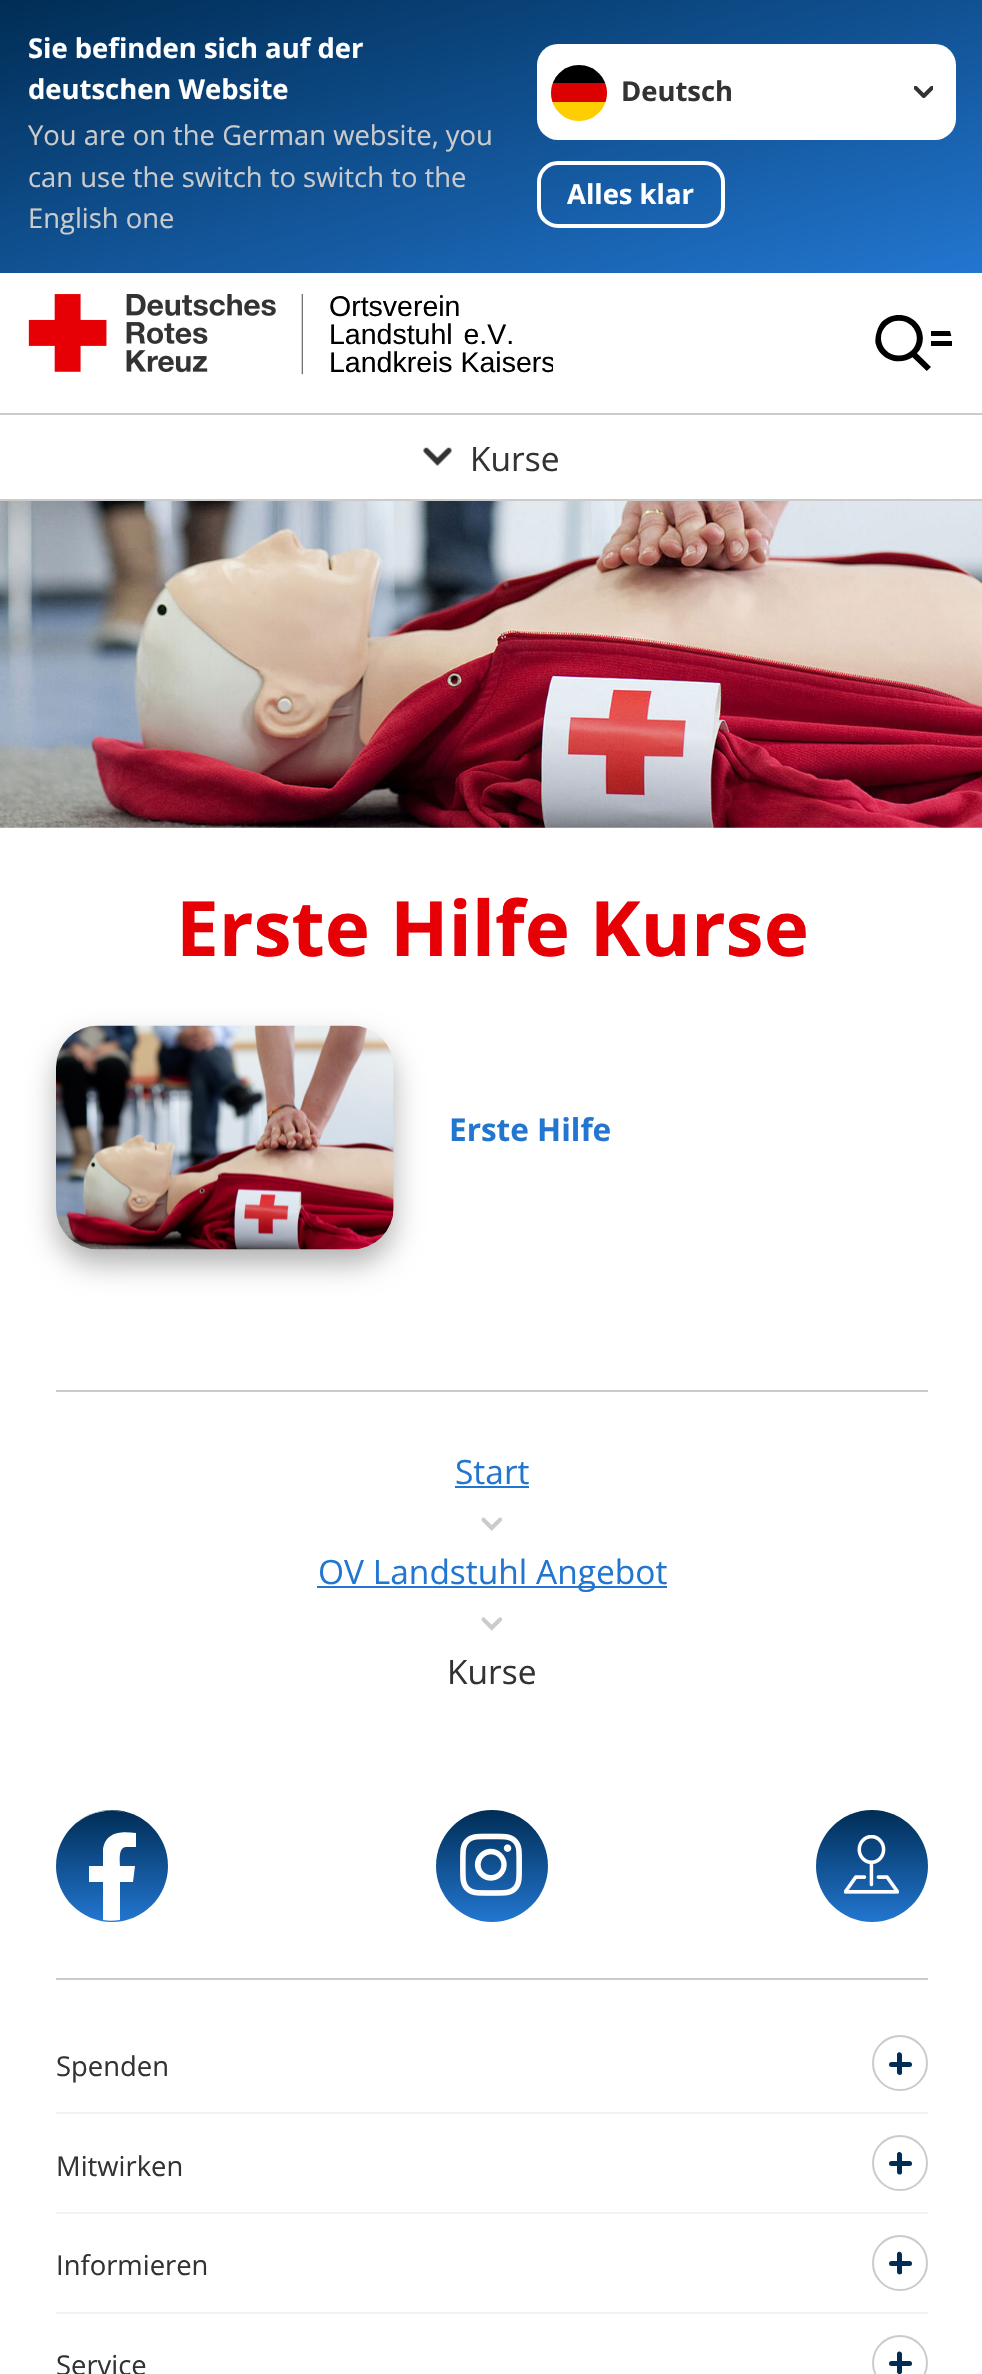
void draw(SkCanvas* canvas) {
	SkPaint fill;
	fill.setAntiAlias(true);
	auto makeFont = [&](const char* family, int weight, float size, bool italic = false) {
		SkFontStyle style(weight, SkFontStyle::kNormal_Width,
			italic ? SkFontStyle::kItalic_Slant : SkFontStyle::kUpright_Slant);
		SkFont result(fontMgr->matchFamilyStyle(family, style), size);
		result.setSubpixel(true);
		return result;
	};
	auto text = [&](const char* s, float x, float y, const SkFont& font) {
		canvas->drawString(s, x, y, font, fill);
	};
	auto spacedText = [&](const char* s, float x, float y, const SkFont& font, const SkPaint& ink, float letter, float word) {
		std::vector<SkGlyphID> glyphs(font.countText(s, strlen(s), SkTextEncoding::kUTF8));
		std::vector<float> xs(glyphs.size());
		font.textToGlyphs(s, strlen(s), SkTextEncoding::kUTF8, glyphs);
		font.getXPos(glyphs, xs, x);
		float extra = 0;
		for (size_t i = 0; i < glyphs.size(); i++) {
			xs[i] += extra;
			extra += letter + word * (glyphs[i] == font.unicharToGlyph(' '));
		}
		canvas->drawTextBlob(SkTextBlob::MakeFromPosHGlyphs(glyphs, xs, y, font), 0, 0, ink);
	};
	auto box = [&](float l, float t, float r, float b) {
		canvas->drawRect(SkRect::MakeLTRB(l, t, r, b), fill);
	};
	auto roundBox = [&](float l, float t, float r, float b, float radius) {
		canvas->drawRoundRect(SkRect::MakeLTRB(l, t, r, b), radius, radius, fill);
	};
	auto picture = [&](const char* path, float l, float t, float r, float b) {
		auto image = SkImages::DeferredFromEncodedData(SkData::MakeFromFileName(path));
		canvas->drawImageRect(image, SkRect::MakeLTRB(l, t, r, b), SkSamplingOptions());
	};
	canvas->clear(0xFFFFFFFF);
	{
		const SkColor colors[] = {0xFF002D55, 0xFF2276D0};
		const float stops[] = {0, 1};
		const SkPoint ends[] = {{421, -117}, {562, 390}};
		fill.setShader(SkGradientShader::MakeLinear(ends, colors, stops, 2, SkTileMode::kClamp));
		fill.setAlpha(255);
	}
	box(0, 0, 982, 273);
	fill.setShader(nullptr);
	fill.setColor(0xFFFFFFFF);
	roundBox(537, 44, 956, 140, 21);
	canvas->save();
	canvas->clipPath(SkPathBuilder().moveTo(579, 65).cubicTo(594.5f, 65, 607, 77.5f, 607, 93).cubicTo(607, 108.5f, 594.5f, 121, 579, 121).cubicTo(563.5f, 121, 551, 108.5f, 551, 93).cubicTo(551, 77.5f, 563.5f, 65, 579, 65).close().detach(), true);
	fill.setColor(0xFFFFCE00);
	box(552, 102, 606, 121);
	fill.setColor(0xFF000000);
	box(552, 65, 606, 83);
	fill.setColor(0xFFDD0000);
	box(551, 83, 607, 102);
	canvas->restore();
	picture("image0.png", 914, 86, 933, 98);
	fill.setStyle(SkPaint::kStroke_Style);
	fill.setStrokeWidth(4);
	fill.setColor(0xFFFFFFFF);
	canvas->drawRoundRect(SkRect::MakeLTRB(539, 163, 723, 226), 19, 19, fill);
	fill.setStyle(SkPaint::kFill_Style);
	fill.setColor(0xFFCBCBCB);
	box(0, 413, 982, 415);
	picture("image1.png", 28, 294, 303, 375);
	picture("image2.png", 875, 315, 931, 371);
	canvas->save();
	canvas->clipPath(SkPathBuilder().moveTo(913.5f, 305).cubicTo(935, 305, 952, 322, 952, 343.5f).cubicTo(952, 365, 935, 382, 913.5f, 382).cubicTo(892, 382, 875, 365, 875, 343.5f).cubicTo(875, 322, 892, 305, 913.5f, 305).close().detach(), true);
	fill.setColor(0xFF000000);
	box(931, 331, 952, 336);
	canvas->restore();
	box(931, 341, 952, 346);
	fill.setColor(0xFFCBCBCB);
	box(0, 499, 982, 501);
	picture("image3.png", 423, 447, 452, 466);
	picture("image4.png", 0, 501, 982, 828);
	fill.setColor(0x4D000000);
	fill.setMaskFilter(SkMaskFilter::MakeBlur(kNormal_SkBlurStyle, 14));
	canvas->drawRoundRect(SkRect::MakeLTRB(56, 1040, 394, 1264), 42, 42, fill);
	fill.setMaskFilter(nullptr);
	picture("image5.png", 56, 1025, 394, 1250);
	fill.setColor(0xFFCBCBCB);
	box(56, 1390, 928, 1392);
	fill.setColor(0xFF2276D0);
	box(455, 1486, 529, 1488);
	picture("image6.png", 481, 1517, 502, 1531);
	box(317, 1586, 667, 1588);
	picture("image7.png", 481, 1617, 502, 1631);
	{
		const SkColor colors[] = {0xFF002D55, 0xFF2276D0};
		const float stops[] = {0, 1};
		const SkPoint ends[] = {{112, 1810}, {112, 1922}};
		fill.setShader(SkGradientShader::MakeLinear(ends, colors, stops, 2, SkTileMode::kClamp));
		fill.setAlpha(255);
	}
	canvas->drawCircle(112, 1866, 56, fill);
	fill.setShader(nullptr);
	fill.setColor(0xFFFFFFFF);
	canvas->drawPath(SkPathBuilder(SkPathFillType::kEvenOdd).moveTo(71, 1828).cubicTo(86, 1811, 111, 1806, 132, 1815).cubicTo(111, 1806, 86, 1812, 71, 1828).close().moveTo(103, 1920).cubicTo(108, 1921, 114, 1921, 120, 1920).lineTo(120, 1882).lineTo(133, 1882).lineTo(135, 1866).lineTo(120, 1866).cubicTo(120, 1860, 118, 1848, 126, 1847).lineTo(136, 1847).lineTo(136, 1833).cubicTo(122, 1831, 106, 1831, 103, 1849).lineTo(103, 1866).lineTo(89, 1866).lineTo(89, 1882).lineTo(103, 1882).close().detach(), fill);
	{
		const SkColor colors[] = {0xFF002D55, 0xFF2276D0};
		const float stops[] = {0, 1};
		const SkPoint ends[] = {{492, 1810}, {492, 1922}};
		fill.setShader(SkGradientShader::MakeLinear(ends, colors, stops, 2, SkTileMode::kClamp));
		fill.setAlpha(255);
	}
	canvas->drawCircle(492, 1866, 56, fill);
	picture("image8.png", 460, 1833, 522, 1896);
	{
		const SkColor colors[] = {0xFF002D55, 0xFF2276D0};
		const float stops[] = {0, 1};
		const SkPoint ends[] = {{872, 1810}, {872, 1922}};
		fill.setShader(SkGradientShader::MakeLinear(ends, colors, stops, 2, SkTileMode::kClamp));
		fill.setAlpha(255);
	}
	canvas->drawCircle(872, 1866, 56, fill);
	picture("image9.png", 844, 1835, 899, 1894);
	fill.setShader(nullptr);
	fill.setColor(0xFFCBCBCB);
	box(56, 1978, 928, 1980);
	fill.setColor(0xFFF2F2F2);
	box(56, 2112, 928, 2114);
	fill.setStyle(SkPaint::kStroke_Style);
	fill.setStrokeWidth(2);
	fill.setColor(0xFFCBCBCB);
	canvas->drawCircle(900, 2063, 27, fill);
	fill.setStyle(SkPaint::kFill_Style);
	fill.setColor(0xFF002D55);
	roundBox(889, 2062, 912, 2067, 2.5f);
	canvas->drawPath(SkPathBuilder().moveTo(902, 2055).lineTo(902, 2073.5f).cubicTo(901, 2076, 897, 2075, 897, 2072.5f).lineTo(897, 2054).cubicTo(898, 2051, 902, 2052, 902, 2055).close().detach(), fill);
	fill.setColor(0xFFF2F2F2);
	box(56, 2212, 928, 2214);
	fill.setStyle(SkPaint::kStroke_Style);
	fill.setColor(0xFFCBCBCB);
	canvas->drawCircle(900, 2163, 27, fill);
	fill.setStyle(SkPaint::kFill_Style);
	fill.setColor(0xFF002D55);
	roundBox(889, 2161, 912, 2166, 2.5f);
	canvas->drawPath(SkPathBuilder().moveTo(902, 2154.5f).lineTo(902, 2173).cubicTo(901, 2175.5f, 897, 2175, 897, 2172).lineTo(897, 2153.5f).cubicTo(898, 2151, 902, 2151.5f, 902, 2154.5f).close().detach(), fill);
	fill.setColor(0xFFF2F2F2);
	box(56, 2312, 928, 2314);
	fill.setStyle(SkPaint::kStroke_Style);
	fill.setColor(0xFFCBCBCB);
	canvas->drawCircle(900, 2263, 27, fill);
	fill.setStyle(SkPaint::kFill_Style);
	fill.setColor(0xFF002D55);
	roundBox(889, 2261, 912, 2266, 2.5f);
	canvas->drawPath(SkPathBuilder().moveTo(902, 2254.5f).lineTo(902, 2273).cubicTo(901, 2275.5f, 897, 2274.5f, 897, 2272).lineTo(897, 2253.5f).cubicTo(898, 2250.5f, 902, 2251.5f, 902, 2254.5f).close().detach(), fill);
	fill.setStyle(SkPaint::kStroke_Style);
	fill.setColor(0xFFCBCBCB);
	canvas->drawCircle(900, 2363, 27, fill);
	fill.setStyle(SkPaint::kFill_Style);
	fill.setColor(0xFF002D55);
	roundBox(889, 2361, 912, 2366, 2.5f);
	canvas->drawPath(SkPathBuilder().moveTo(902, 2354).lineTo(902, 2372.5f).cubicTo(901, 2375, 897, 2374.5f, 897, 2371.5f).lineTo(897, 2353).cubicTo(898, 2350.5f, 902, 2351, 902, 2354).close().detach(), fill);
	auto font1 = makeFont("Open Sans", 700, 27.4f);
	fill.setColor(0xFFFFFFFF);
	text("Sie befinden sich auf der", 28, 58, font1);
	text("deutschen Website", 28, 99, font1);
	auto font2 = makeFont("Open Sans", 400, 27.4f);
	fill.setColor(0xFFCBCBCB);
	text("You are on the German website, you", 28, 145, font2);
	text("can use the switch to switch to the", 28, 187, font2);
	text("English one", 28, 228, font2);
	fill.setColor(0xFF333333);
	text("Deutsch", 621, 101, font1);
	fill.setColor(0xFFFFFFFF);
	text("Alles klar", 567, 204, font1);
	auto font3 = makeFont("Liberation Sans", 400, 28.5f);
	fill.setColor(0xFF000000);
	text("Ortsverein", 329, 316, font3);
	spacedText("Landstuhl e.V.", 329, 344, font3, fill, 0, 3);
	canvas->save();
	canvas->clipRect(SkRect::MakeLTRB(28, 294, 553, 378));
	text("Landkreis Kaisers", 329, 372, font3);
	canvas->restore();
	auto font4 = makeFont("Open Sans", 400, 33.5f);
	fill.setColor(0xFF333333);
	text("Kurse", 470, 471, font4);
	auto font5 = makeFont("Open Sans", 700, 76.5f);
	fill.setColor(0xFFE60005);
	text("Erste Hilfe Kurse", 176, 956, font5);
	auto font6 = makeFont("Open Sans", 700, 31.5f);
	fill.setColor(0xFF2276D0);
	text("Erste Hilfe", 449, 1141, font6);
	text("Start", 455, 1484, font4);
	text("OV Landstuhl Angebot", 318, 1584, font4);
	fill.setColor(0xFF333333);
	text("Kurse", 447, 1684, font4);
	text("Spenden", 56, 2076, font2);
	text("Mitwirken", 56, 2176, font2);
	text("Informieren", 56, 2275, font2);
	text("Service", 56, 2375, font2);
}
